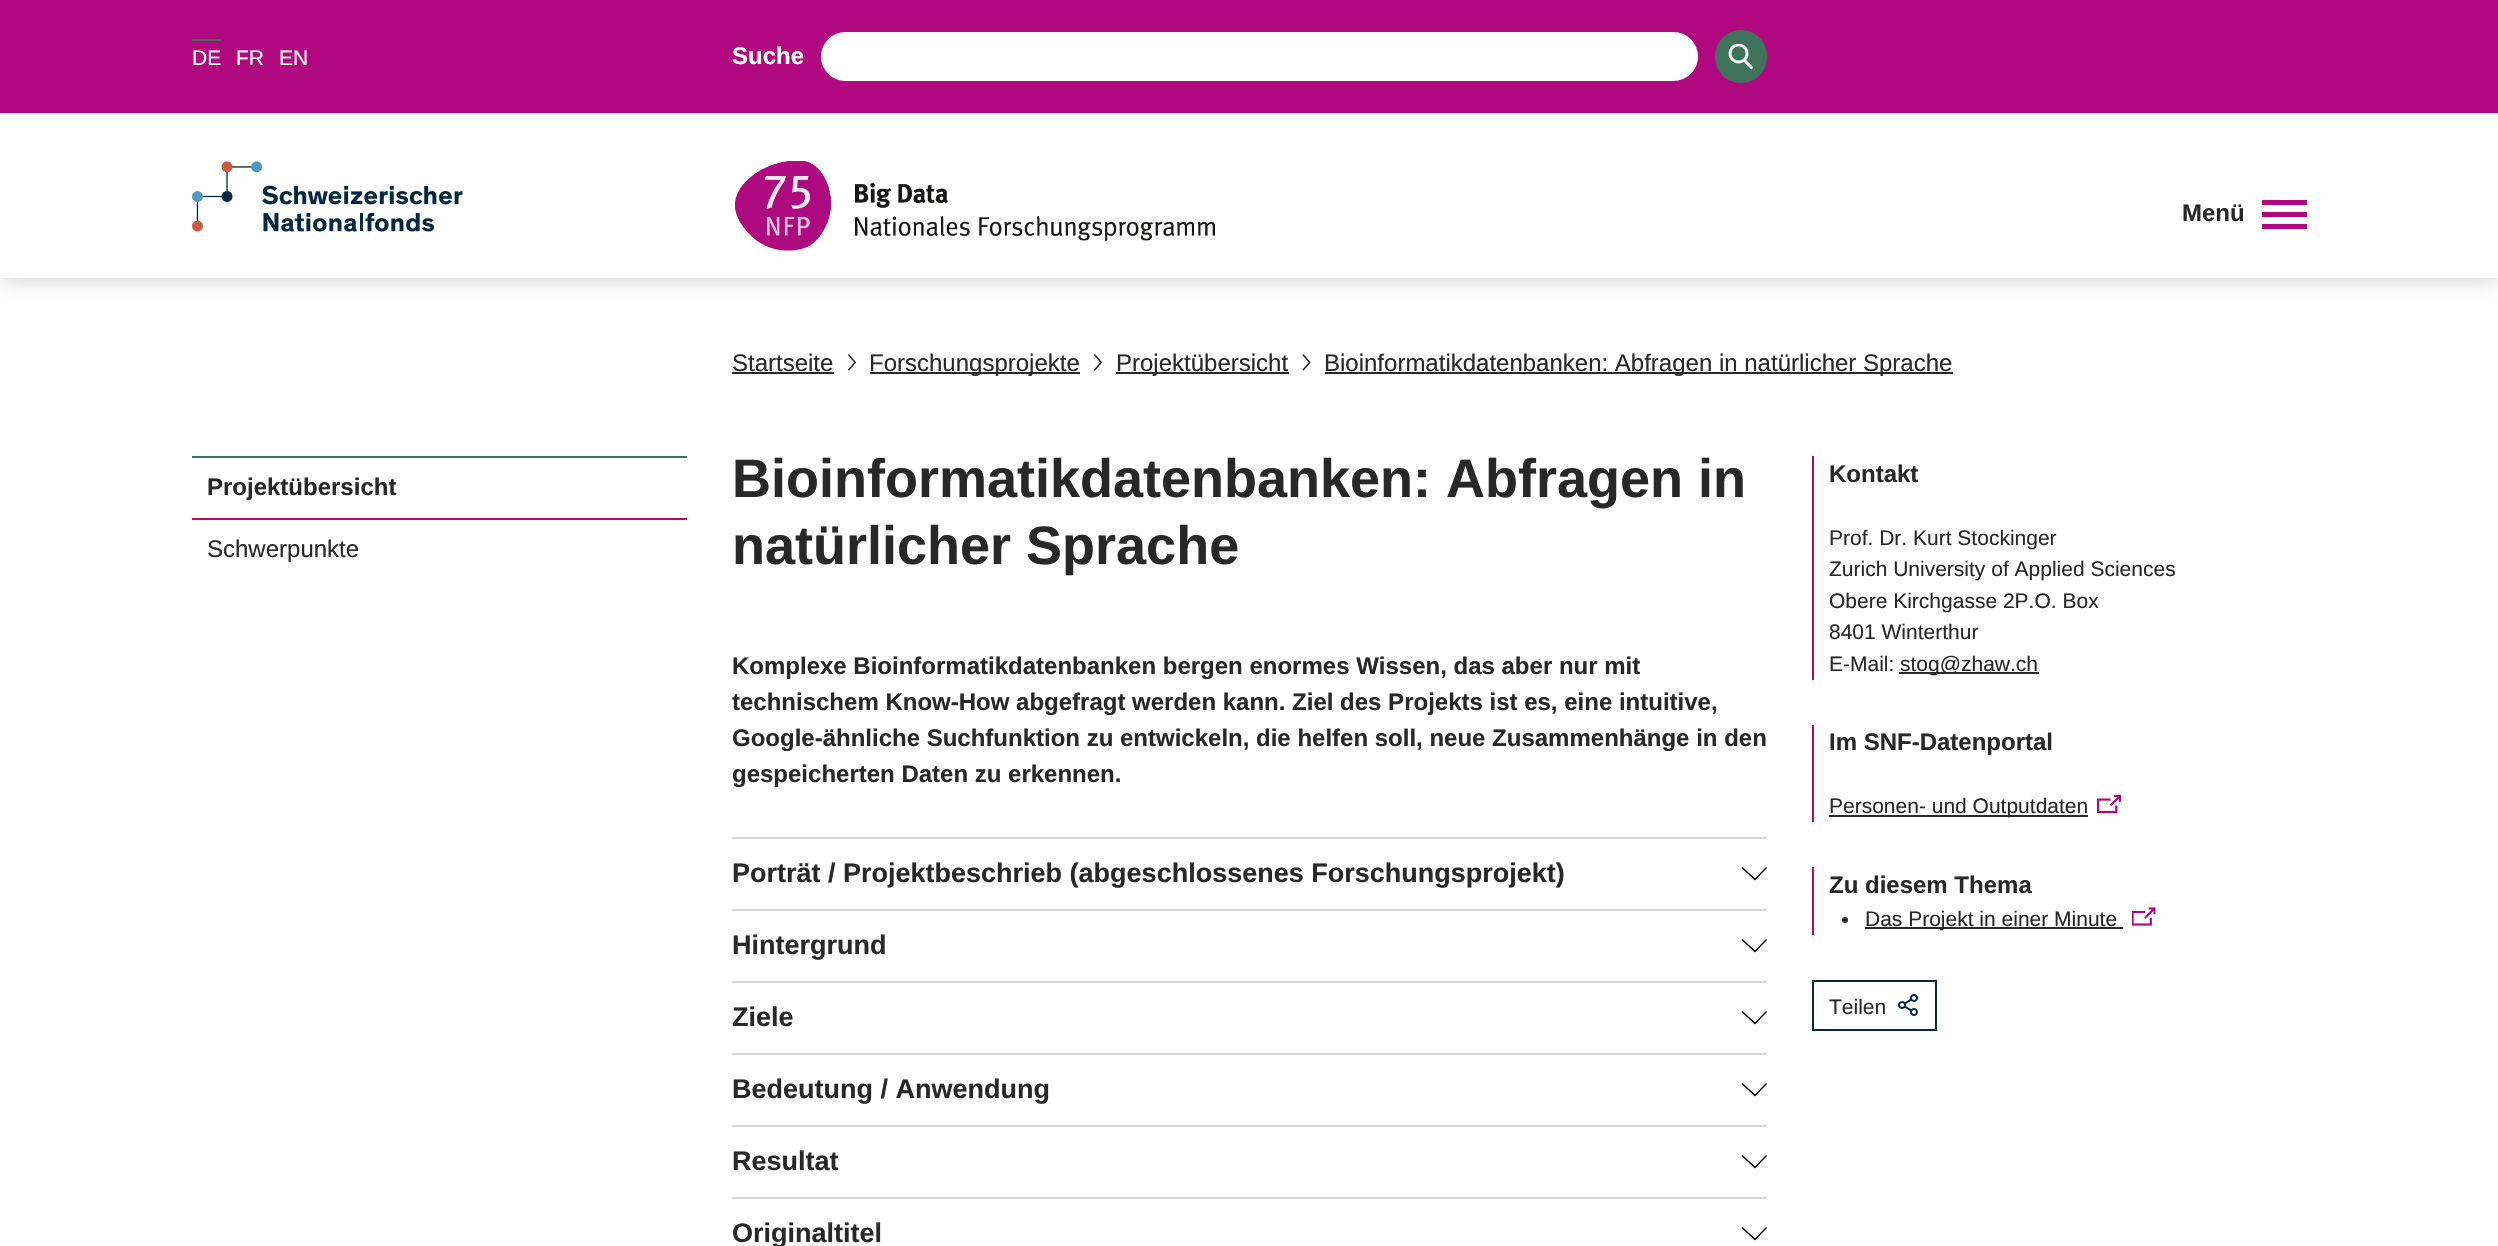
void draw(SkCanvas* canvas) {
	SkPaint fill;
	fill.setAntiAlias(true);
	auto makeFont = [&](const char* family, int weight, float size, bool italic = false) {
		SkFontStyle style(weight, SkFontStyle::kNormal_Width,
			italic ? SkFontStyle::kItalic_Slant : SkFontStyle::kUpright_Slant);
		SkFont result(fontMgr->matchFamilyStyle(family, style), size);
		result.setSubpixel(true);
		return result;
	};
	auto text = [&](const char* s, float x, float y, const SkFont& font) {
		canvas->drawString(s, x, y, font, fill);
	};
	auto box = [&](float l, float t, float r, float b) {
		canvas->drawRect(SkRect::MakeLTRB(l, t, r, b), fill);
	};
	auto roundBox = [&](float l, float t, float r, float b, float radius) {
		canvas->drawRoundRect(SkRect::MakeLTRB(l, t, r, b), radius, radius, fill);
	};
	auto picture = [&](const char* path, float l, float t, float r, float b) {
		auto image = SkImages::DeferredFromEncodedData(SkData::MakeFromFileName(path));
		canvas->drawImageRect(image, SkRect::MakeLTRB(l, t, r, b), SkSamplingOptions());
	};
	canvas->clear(0xFFFFFFFF);
	fill.setColor(0x40282828);
	fill.setMaskFilter(SkMaskFilter::MakeBlur(kNormal_SkBlurStyle, 11));
	canvas->drawRect(SkRect::MakeLTRB(0, 0, 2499, 278), fill);
	fill.setMaskFilter(nullptr);
	fill.setColor(0xFFB0097F);
	box(0, 0, 2498, 113);
	fill.setColor(0xFF3F735C);
	box(192, 39, 221, 41);
	fill.setColor(0xFFFFFFFF);
	canvas->drawRoundRect(SkRect::MakeLTRB(820, 31, 1699, 82), 25.5f, 25.5f, fill);
	fill.setStyle(SkPaint::kStroke_Style);
	fill.setStrokeWidth(2);
	fill.setColor(0xFFB0097F);
	canvas->drawRoundRect(SkRect::MakeLTRB(820, 31, 1699, 82), 25.5f, 25.5f, fill);
	fill.setStyle(SkPaint::kFill_Style);
	fill.setColor(0xFF3F735C);
	roundBox(1715, 30, 1767, 83, 26);
	picture("image0.png", 1728, 44, 1753, 69);
	fill.setColor(0xFFFFFFFF);
	box(0, 113, 2498, 278);
	picture("image1.png", 192, 161, 463, 232);
	picture("image2.png", 735, 161, 1215, 251);
	fill.setColor(0xFFB0097F);
	box(2262, 212, 2307, 217);
	box(2262, 200, 2307, 205);
	box(2262, 224, 2307, 229);
	fill.setColor(0xFF282828);
	box(732, 372, 834, 374);
	picture("image3.png", 847, 354, 857, 371);
	box(870, 372, 1080, 374);
	picture("image3.png", 1093, 354, 1103, 371);
	box(1116, 372, 1289, 374);
	picture("image4.png", 1302, 354, 1311, 371);
	box(1325, 372, 1953, 374);
	fill.setColor(0xFF3F735C);
	box(192, 456, 687, 458);
	fill.setColor(0xFFB0097F);
	box(192, 518, 687, 520);
	fill.setColor(0xFFD7D7D7);
	box(732, 837, 1767, 839);
	fill.setColor(0xFF000000);
	canvas->drawPath(SkPathBuilder().moveTo(1755, 880.5f).lineTo(1741.5f, 868).lineTo(1742.5f, 867).lineTo(1755, 878.5f).lineTo(1766, 867).lineTo(1767, 868).close().detach(), fill);
	fill.setColor(0xFFD7D7D7);
	box(732, 909, 1767, 911);
	fill.setColor(0xFF000000);
	canvas->drawPath(SkPathBuilder().moveTo(1755, 952.5f).lineTo(1741.5f, 940).lineTo(1742.5f, 939).lineTo(1755, 950.5f).lineTo(1766, 939).lineTo(1767, 940).close().detach(), fill);
	fill.setColor(0xFFD7D7D7);
	box(732, 981, 1767, 983);
	fill.setColor(0xFF000000);
	canvas->drawPath(SkPathBuilder().moveTo(1755, 1024.5f).lineTo(1741.5f, 1012).lineTo(1742.5f, 1011).lineTo(1755, 1022.5f).lineTo(1766, 1011).lineTo(1767, 1012).close().detach(), fill);
	fill.setColor(0xFFD7D7D7);
	box(732, 1053, 1767, 1055);
	fill.setColor(0xFF000000);
	canvas->drawPath(SkPathBuilder().moveTo(1755, 1096.5f).lineTo(1741.5f, 1084).lineTo(1742.5f, 1083).lineTo(1755, 1094.5f).lineTo(1766, 1083).lineTo(1767, 1084).close().detach(), fill);
	fill.setColor(0xFFD7D7D7);
	box(732, 1125, 1767, 1127);
	fill.setColor(0xFF000000);
	canvas->drawPath(SkPathBuilder().moveTo(1755, 1168.5f).lineTo(1741.5f, 1156).lineTo(1742.5f, 1155).lineTo(1755, 1166.5f).lineTo(1766, 1155).lineTo(1767, 1156).close().detach(), fill);
	fill.setColor(0xFFD7D7D7);
	box(732, 1197, 1767, 1199);
	fill.setColor(0xFF000000);
	canvas->drawPath(SkPathBuilder().moveTo(1755, 1240.5f).lineTo(1741.5f, 1228).lineTo(1742.5f, 1227).lineTo(1755, 1238.5f).lineTo(1766, 1227).lineTo(1767, 1228).close().detach(), fill);
	fill.setColor(0xFFB0097F);
	box(1812, 456, 1814, 680);
	fill.setColor(0xFF282828);
	box(1899, 672, 2039, 674);
	fill.setColor(0xFFB0097F);
	box(1812, 725, 1814, 822);
	fill.setColor(0xFF282828);
	box(1829, 815, 2088, 817);
	picture("image5.png", 2097, 794, 2121, 814);
	fill.setColor(0xFFB0097F);
	box(1812, 867, 1814, 935);
	fill.setColor(0xFF282828);
	canvas->drawCircle(1845, 920, 3, fill);
	box(1865, 927, 2123, 929);
	picture("image6.png", 2132, 907, 2156, 926);
	fill.setStyle(SkPaint::kStroke_Style);
	fill.setColor(0xFF04293C);
	canvas->drawRect(SkRect::MakeLTRB(1813, 981, 1936, 1030), fill);
	picture("image7.png", 1898, 994, 1918, 1016);
	auto font1 = makeFont("Liberation Sans", 400, 21);
	fill.setStyle(SkPaint::kFill_Style);
	fill.setColor(0xFFFFFFFF);
	text("DE", 192, 65, font1);
	text("FR", 236, 65, font1);
	text("EN", 279, 65, font1);
	auto font2 = makeFont("Liberation Sans", 700, 24);
	text("Suche", 732, 64, font2);
	fill.setColor(0xFF282828);
	text("Menü", 2182, 221, font2);
	auto font3 = makeFont("Liberation Sans", 400, 24);
	text("Startseite", 732, 371, font3);
	text("Forschungsprojekte", 869, 371, font3);
	text("Projektübersicht", 1116, 371, font3);
	text("Bioinformatikdatenbanken: Abfragen in natürlicher Sprache", 1324, 371, font3);
	text("Projektübersicht", 207, 495, font2);
	text("Schwerpunkte", 207, 557, font3);
	auto font4 = makeFont("Liberation Sans", 700, 54);
	text("Bioinformatikdatenbanken: Abfragen in", 732, 497, font4);
	text("natürlicher Sprache", 732, 564, font4);
	text("Komplexe Bioinformatikdatenbanken bergen enormes Wissen, das aber nur mit", 732, 674, font2);
	text("technischem Know-How abgefragt werden kann. Ziel des Projekts ist es, eine intuitive,", 732, 710, font2);
	text("Google-ähnliche Suchfunktion zu entwickeln, die helfen soll, neue Zusammenhänge in den", 732, 746, font2);
	text("gespeicherten Daten zu erkennen.", 732, 782, font2);
	auto font5 = makeFont("Liberation Sans", 700, 27);
	text("Porträt / Projektbeschrieb (abgeschlossenes Forschungsprojekt)", 732, 882, font5);
	text("Hintergrund", 732, 954, font5);
	text("Ziele", 732, 1026, font5);
	text("Bedeutung / Anwendung", 732, 1098, font5);
	text("Resultat", 732, 1170, font5);
	text("Originaltitel", 732, 1242, font5);
	text("Kontakt", 1829, 482, font2);
	text("Prof. Dr. Kurt Stockinger", 1829, 545, font1);
	text("Zurich University of Applied Sciences", 1829, 576, font1);
	text("Obere Kirchgasse 2P.O. Box", 1829, 608, font1);
	text("8401 Winterthur", 1829, 639, font1);
	text("E-Mail:", 1829, 671, font1);
	text("stog@zhaw.ch", 1900, 671, font1);
	text("Im SNF-Datenportal", 1829, 750, font2);
	text("Personen- und Outputdaten", 1829, 813, font1);
	text("Zu diesem Thema", 1829, 893, font2);
	text("Das Projekt in einer Minute", 1865, 926, font1);
	text("Teilen", 1829, 1014, font1);
}
